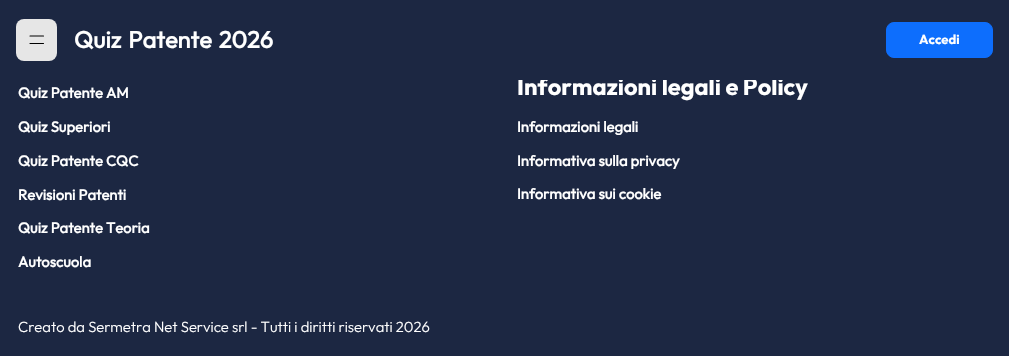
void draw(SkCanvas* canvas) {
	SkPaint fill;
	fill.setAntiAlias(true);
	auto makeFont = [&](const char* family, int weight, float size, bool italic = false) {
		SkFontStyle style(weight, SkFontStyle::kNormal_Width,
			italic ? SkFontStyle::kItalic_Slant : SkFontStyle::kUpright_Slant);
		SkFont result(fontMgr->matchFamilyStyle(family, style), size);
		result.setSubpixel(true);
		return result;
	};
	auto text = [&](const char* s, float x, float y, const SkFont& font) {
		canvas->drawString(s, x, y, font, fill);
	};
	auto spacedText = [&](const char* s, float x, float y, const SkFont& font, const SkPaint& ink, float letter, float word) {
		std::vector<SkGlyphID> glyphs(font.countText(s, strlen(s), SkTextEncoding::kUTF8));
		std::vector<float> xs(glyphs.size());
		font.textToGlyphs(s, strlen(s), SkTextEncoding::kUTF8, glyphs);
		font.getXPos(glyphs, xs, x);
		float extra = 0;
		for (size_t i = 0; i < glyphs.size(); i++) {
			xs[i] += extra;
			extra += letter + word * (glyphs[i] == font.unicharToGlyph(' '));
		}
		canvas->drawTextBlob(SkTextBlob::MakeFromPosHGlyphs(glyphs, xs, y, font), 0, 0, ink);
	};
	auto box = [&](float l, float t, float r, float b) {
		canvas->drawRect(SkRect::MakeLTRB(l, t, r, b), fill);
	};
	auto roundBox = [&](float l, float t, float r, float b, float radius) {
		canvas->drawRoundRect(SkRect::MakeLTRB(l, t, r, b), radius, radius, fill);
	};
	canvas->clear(0xFF1C2742);
	fill.setColor(0xFFE6E6E6);
	roundBox(16, 19, 57, 61, 8);
	fill.setStyle(SkPaint::kStroke_Style);
	fill.setStrokeWidth(1.1f);
	fill.setStrokeCap(SkPaint::kRound_Cap);
	fill.setColor(0xFF000000);
	canvas->drawPath(SkPathBuilder().moveTo(30, 36).lineTo(43.5f, 36).moveTo(30, 43.5f).lineTo(43.5f, 43.5f).detach(), fill);
	fill.setStyle(SkPaint::kFill_Style);
	fill.setColor(0xFF0D6EFD);
	canvas->drawRoundRect(SkRect::MakeLTRB(886.5f, 22.5f, 992.5f, 57.5f), 7.5f, 7.5f, fill);
	fill.setStyle(SkPaint::kStroke_Style);
	fill.setStrokeWidth(1);
	fill.setStrokeCap(SkPaint::kButt_Cap);
	canvas->drawRoundRect(SkRect::MakeLTRB(886.5f, 22.5f, 992.5f, 57.5f), 7.5f, 7.5f, fill);
	auto font1 = makeFont("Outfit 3", 700, 23.6f);
	fill.setStyle(SkPaint::kFill_Style);
	fill.setColor(0xFFFFFFFF);
	spacedText("Quiz Patente 2026", 74, 48, font1, fill, 0, 2);
	auto font2 = makeFont("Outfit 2", 700, 13);
	text("Accedi", 919, 44, font2);
	auto font3 = makeFont("Outfit", 700, 14.75f);
	text("Quiz Patente AM", 18, 98, font3);
	text("Quiz Superiori", 18, 132, font3);
	text("Quiz Patente CQC", 18, 166, font3);
	text("Revisioni Patenti", 18, 200, font3);
	text("Quiz Patente Teoria", 18, 233, font3);
	text("Autoscuola", 18, 267, font3);
	auto font4 = makeFont("Outfit 2", 700, 23.6f);
	text("Informazioni legali e Policy", 517, 95, font4);
	fill.setColor(0xFF1C2742);
	box(518, 77, 783, 80);
	fill.setColor(0xFFFFFFFF);
	text("Informazioni legali", 517, 132, font3);
	text("Informativa sulla privacy", 517, 166, font3);
	text("Informativa sui cookie", 517, 199, font3);
	auto font5 = makeFont("Outfit", 300, 14.75f);
	text("Creato da Sermetra Net Service srl - Tutti i diritti riservati 2026", 18, 332, font5);
}
